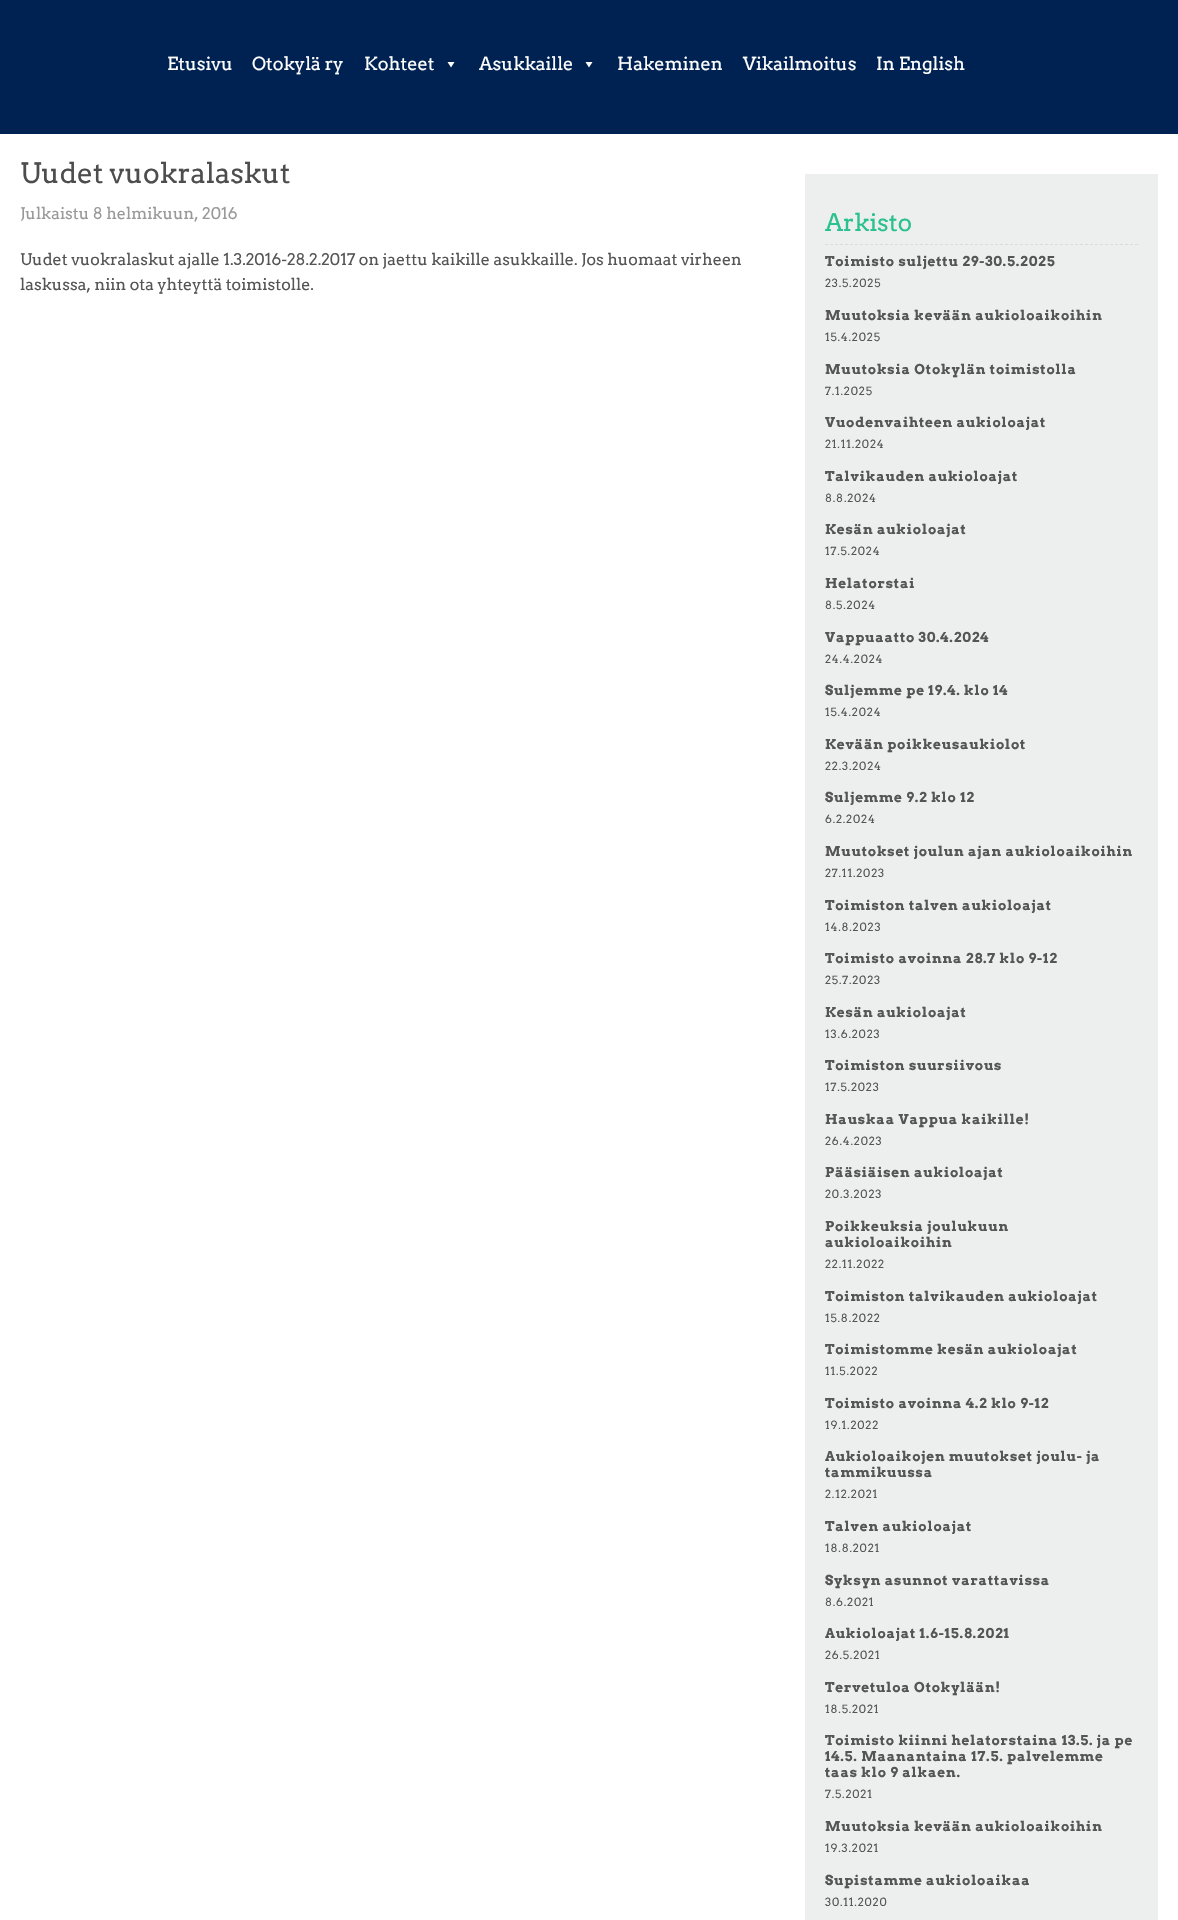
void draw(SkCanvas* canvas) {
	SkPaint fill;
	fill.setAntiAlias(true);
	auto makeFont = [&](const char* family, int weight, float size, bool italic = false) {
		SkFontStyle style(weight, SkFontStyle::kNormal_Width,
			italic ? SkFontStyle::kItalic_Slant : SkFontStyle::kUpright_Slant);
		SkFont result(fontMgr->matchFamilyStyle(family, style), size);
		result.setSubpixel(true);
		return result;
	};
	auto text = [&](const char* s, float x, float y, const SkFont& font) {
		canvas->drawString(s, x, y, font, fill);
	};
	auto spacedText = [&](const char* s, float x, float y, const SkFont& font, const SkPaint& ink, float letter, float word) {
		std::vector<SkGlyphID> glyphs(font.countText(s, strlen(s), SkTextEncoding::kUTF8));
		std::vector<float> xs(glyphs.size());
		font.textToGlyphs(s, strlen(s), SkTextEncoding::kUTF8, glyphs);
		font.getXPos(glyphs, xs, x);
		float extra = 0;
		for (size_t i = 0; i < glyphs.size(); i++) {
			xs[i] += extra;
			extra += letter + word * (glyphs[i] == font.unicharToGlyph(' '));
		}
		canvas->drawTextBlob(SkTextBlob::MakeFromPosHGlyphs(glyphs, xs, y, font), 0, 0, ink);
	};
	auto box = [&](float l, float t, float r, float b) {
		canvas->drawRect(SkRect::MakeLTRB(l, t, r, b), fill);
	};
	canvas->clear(0xFFFFFFFF);
	fill.setColor(0xFF002252);
	box(0, 0, 1178, 134);
	fill.setColor(0xFFFFFFFF);
	canvas->drawPath(SkPathBuilder().moveTo(454.5f, 62).lineTo(451, 67.5f).lineTo(447.5f, 62).close().detach(), fill);
	canvas->drawPath(SkPathBuilder().moveTo(592.5f, 62).lineTo(589, 67.5f).lineTo(585.5f, 62).close().detach(), fill);
	fill.setColor(0xFFEDEFEE);
	box(805, 174, 1158, 1920);
	fill.setStyle(SkPaint::kStroke_Style);
	fill.setStrokeWidth(1);
	fill.setColor(0xFFDBDBDB);
	fill.setPathEffect(SkDashPathEffect::Make({{3, 2}}, 0));
	canvas->drawPath(SkPathBuilder().moveTo(825, 244.5f).lineTo(1138, 244.5f).detach(), fill);
	fill.setPathEffect(nullptr);
	auto font1 = makeFont("Arvo", 400, 18);
	fill.setStyle(SkPaint::kFill_Style);
	fill.setColor(0xFFFFFFFF);
	text("Etusivu", 167, 70, font1);
	text("Otokylä ry", 252, 70, font1);
	text("Kohteet", 364, 70, font1);
	text("Asukkaille", 479, 70, font1);
	text("Hakeminen", 617, 70, font1);
	text("Vikailmoitus", 743, 70, font1);
	text("In English", 876, 70, font1);
	auto font2 = makeFont("Arvo", 400, 28);
	fill.setColor(0xFF4D4D4D);
	text("Uudet vuokralaskut", 20, 183, font2);
	auto font3 = makeFont("Arvo", 400, 16);
	fill.setColor(0xFF999999);
	text("Julkaistu 8 helmikuun, 2016", 20, 219, font3);
	fill.setColor(0xFF555555);
	text("Uudet vuokralaskut ajalle 1.3.2016-28.2.2017 on jaettu kaikille asukkaille. Jos huomaat virheen", 20, 265, font3);
	text("laskussa, niin ota yhteyttä toimistolle.", 20, 290, font3);
	auto font4 = makeFont("Arvo", 400, 24);
	fill.setColor(0xFF28C18F);
	text("Arkisto", 825, 231, font4);
	auto font5 = makeFont("Arvo", 700, 13.6f);
	fill.setColor(0xFF555555);
	spacedText("Toimisto suljettu 29-30.5.2025", 825, 266, font5, fill, 0.8f, 0);
	auto font6 = makeFont("Arvo", 400, 11.25f);
	spacedText("23.5.2025", 825, 287, font6, fill, 0.8f, 0);
	spacedText("Muutoksia kevään aukioloaikoihin", 825, 320, font5, fill, 0.8f, 0);
	spacedText("15.4.2025", 825, 341, font6, fill, 0.8f, 0);
	spacedText("Muutoksia Otokylän toimistolla", 825, 374, font5, fill, 0.8f, 0);
	spacedText("7.1.2025", 825, 395, font6, fill, 0.8f, 0);
	spacedText("Vuodenvaihteen aukioloajat", 825, 427, font5, fill, 0.8f, 0);
	spacedText("21.11.2024", 825, 448, font6, fill, 0.8f, 0);
	spacedText("Talvikauden aukioloajat", 825, 481, font5, fill, 0.8f, 0);
	spacedText("8.8.2024", 825, 502, font6, fill, 0.8f, 0);
	spacedText("Kesän aukioloajat", 825, 534, font5, fill, 0.8f, 0);
	spacedText("17.5.2024", 825, 555, font6, fill, 0.8f, 0);
	spacedText("Helatorstai", 825, 588, font5, fill, 0.8f, 0);
	spacedText("8.5.2024", 825, 609, font6, fill, 0.8f, 0);
	spacedText("Vappuaatto 30.4.2024", 825, 642, font5, fill, 0.8f, 0);
	spacedText("24.4.2024", 825, 663, font6, fill, 0.8f, 0);
	spacedText("Suljemme pe 19.4. klo 14", 825, 695, font5, fill, 0.8f, 0);
	spacedText("15.4.2024", 825, 716, font6, fill, 0.8f, 0);
	spacedText("Kevään poikkeusaukiolot", 825, 749, font5, fill, 0.8f, 0);
	spacedText("22.3.2024", 825, 770, font6, fill, 0.8f, 0);
	spacedText("Suljemme 9.2 klo 12", 825, 802, font5, fill, 0.8f, 0);
	spacedText("6.2.2024", 825, 823, font6, fill, 0.8f, 0);
	spacedText("Muutokset joulun ajan aukioloaikoihin", 825, 856, font5, fill, 0.8f, 0);
	spacedText("27.11.2023", 825, 877, font6, fill, 0.8f, 0);
	spacedText("Toimiston talven aukioloajat", 825, 910, font5, fill, 0.8f, 0);
	spacedText("14.8.2023", 825, 931, font6, fill, 0.8f, 0);
	spacedText("Toimisto avoinna 28.7 klo 9-12", 825, 963, font5, fill, 0.8f, 0);
	spacedText("25.7.2023", 825, 984, font6, fill, 0.8f, 0);
	spacedText("Kesän aukioloajat", 825, 1017, font5, fill, 0.8f, 0);
	spacedText("13.6.2023", 825, 1038, font6, fill, 0.8f, 0);
	spacedText("Toimiston suursiivous", 825, 1070, font5, fill, 0.8f, 0);
	spacedText("17.5.2023", 825, 1091, font6, fill, 0.8f, 0);
	spacedText("Hauskaa Vappua kaikille!", 825, 1124, font5, fill, 0.8f, 0);
	spacedText("26.4.2023", 825, 1145, font6, fill, 0.8f, 0);
	spacedText("Pääsiäisen aukioloajat", 825, 1177, font5, fill, 0.8f, 0);
	spacedText("20.3.2023", 825, 1198, font6, fill, 0.8f, 0);
	spacedText("Poikkeuksia joulukuun", 825, 1231, font5, fill, 0.8f, 0);
	spacedText("aukioloaikoihin", 825, 1247, font5, fill, 0.8f, 0);
	spacedText("22.11.2022", 825, 1268, font6, fill, 0.8f, 0);
	spacedText("Toimiston talvikauden aukioloajat", 825, 1301, font5, fill, 0.8f, 0);
	spacedText("15.8.2022", 825, 1322, font6, fill, 0.8f, 0);
	spacedText("Toimistomme kesän aukioloajat", 825, 1354, font5, fill, 0.8f, 0);
	spacedText("11.5.2022", 825, 1375, font6, fill, 0.8f, 0);
	spacedText("Toimisto avoinna 4.2 klo 9-12", 825, 1408, font5, fill, 0.8f, 0);
	spacedText("19.1.2022", 825, 1429, font6, fill, 0.8f, 0);
	spacedText("Aukioloaikojen muutokset joulu- ja", 825, 1461, font5, fill, 0.8f, 0);
	spacedText("tammikuussa", 825, 1477, font5, fill, 0.8f, 0);
	spacedText("2.12.2021", 825, 1498, font6, fill, 0.8f, 0);
	spacedText("Talven aukioloajat", 825, 1531, font5, fill, 0.8f, 0);
	spacedText("18.8.2021", 825, 1552, font6, fill, 0.8f, 0);
	spacedText("Syksyn asunnot varattavissa", 825, 1585, font5, fill, 0.8f, 0);
	spacedText("8.6.2021", 825, 1606, font6, fill, 0.8f, 0);
	spacedText("Aukioloajat 1.6-15.8.2021", 825, 1638, font5, fill, 0.8f, 0);
	spacedText("26.5.2021", 825, 1659, font6, fill, 0.8f, 0);
	spacedText("Tervetuloa Otokylään!", 825, 1692, font5, fill, 0.8f, 0);
	spacedText("18.5.2021", 825, 1713, font6, fill, 0.8f, 0);
	spacedText("Toimisto kiinni helatorstaina 13.5. ja pe", 825, 1745, font5, fill, 0.8f, 0);
	spacedText("14.5. Maanantaina 17.5. palvelemme", 825, 1761, font5, fill, 0.8f, 0);
	spacedText("taas klo 9 alkaen.", 825, 1777, font5, fill, 0.8f, 0);
	spacedText("7.5.2021", 825, 1798, font6, fill, 0.8f, 0);
	spacedText("Muutoksia kevään aukioloaikoihin", 825, 1831, font5, fill, 0.8f, 0);
	spacedText("19.3.2021", 825, 1852, font6, fill, 0.8f, 0);
	spacedText("Supistamme aukioloaikaa", 825, 1885, font5, fill, 0.8f, 0);
	spacedText("30.11.2020", 825, 1906, font6, fill, 0.8f, 0);
}
